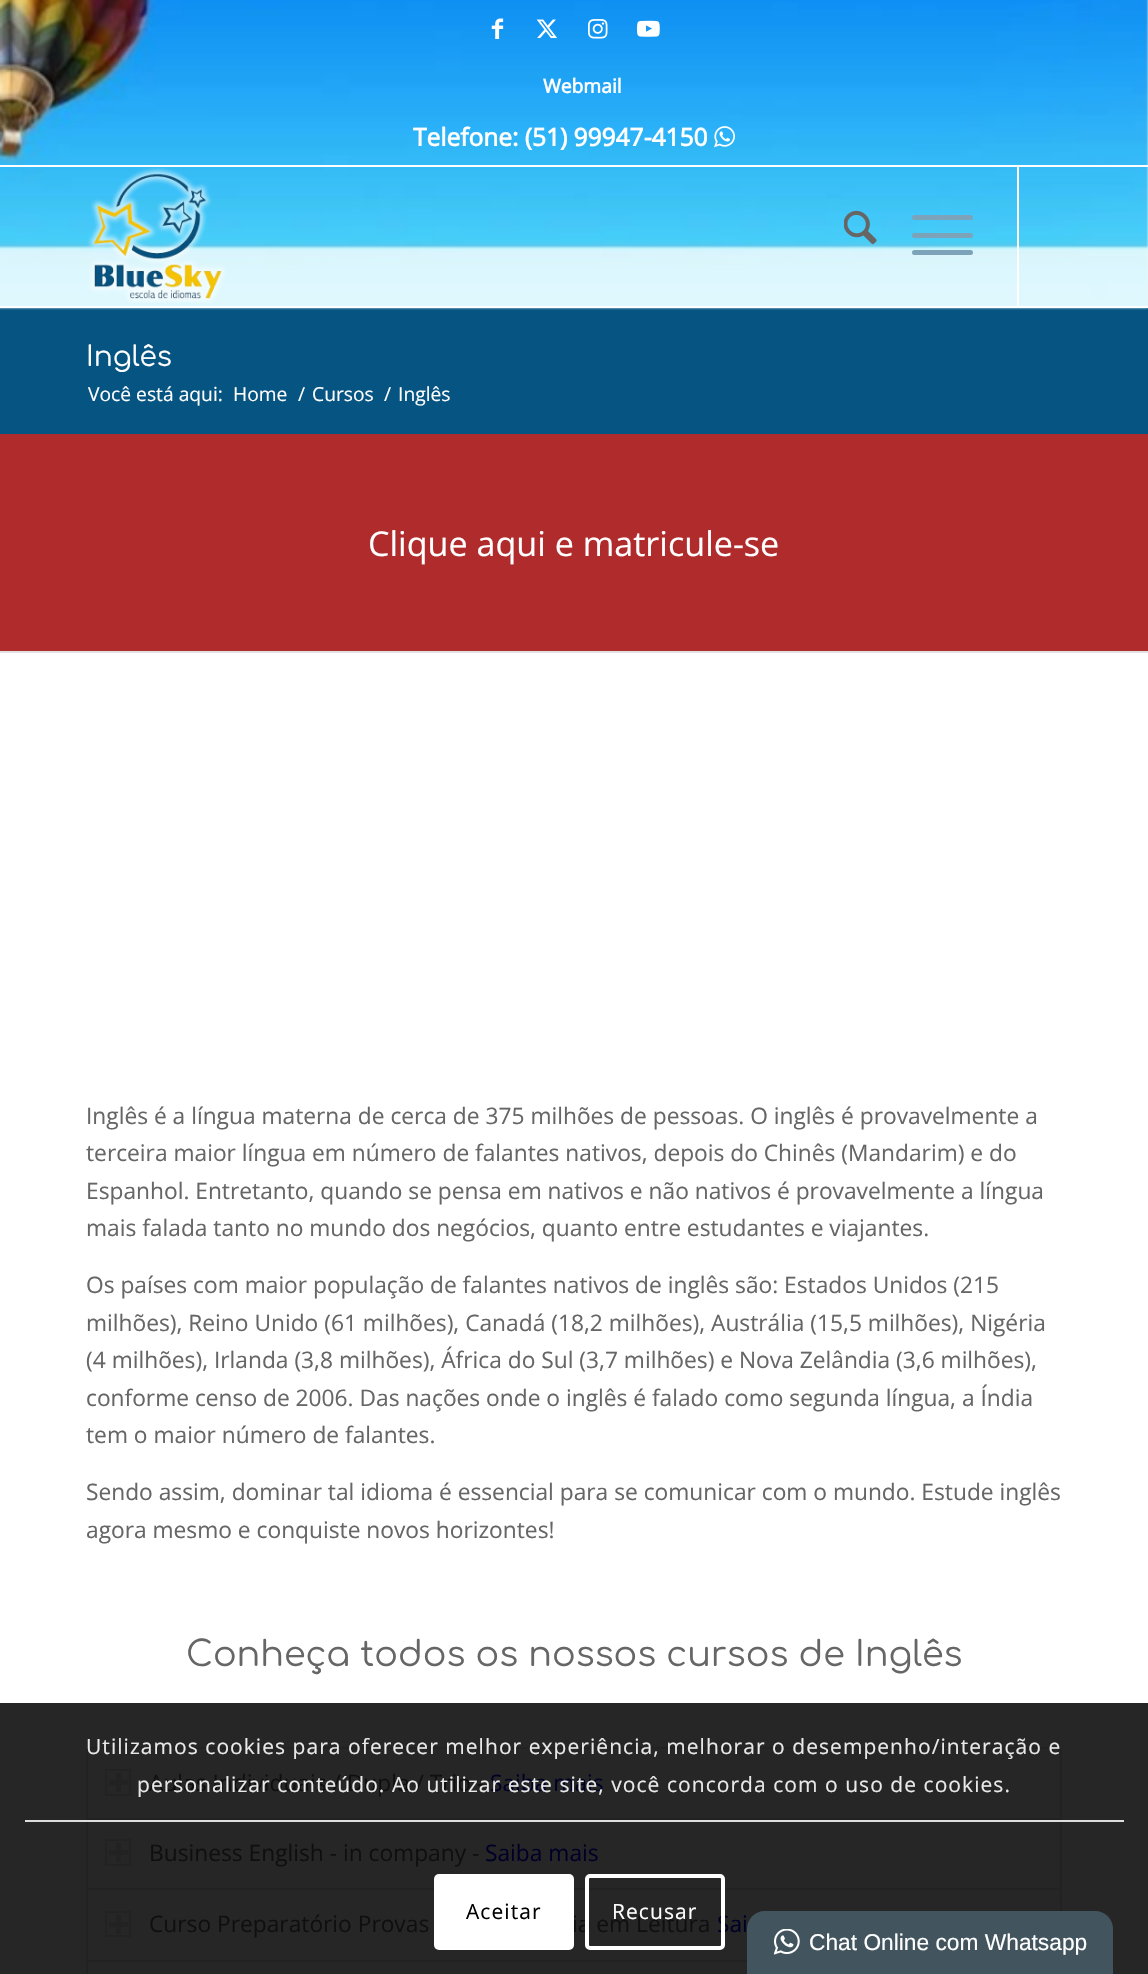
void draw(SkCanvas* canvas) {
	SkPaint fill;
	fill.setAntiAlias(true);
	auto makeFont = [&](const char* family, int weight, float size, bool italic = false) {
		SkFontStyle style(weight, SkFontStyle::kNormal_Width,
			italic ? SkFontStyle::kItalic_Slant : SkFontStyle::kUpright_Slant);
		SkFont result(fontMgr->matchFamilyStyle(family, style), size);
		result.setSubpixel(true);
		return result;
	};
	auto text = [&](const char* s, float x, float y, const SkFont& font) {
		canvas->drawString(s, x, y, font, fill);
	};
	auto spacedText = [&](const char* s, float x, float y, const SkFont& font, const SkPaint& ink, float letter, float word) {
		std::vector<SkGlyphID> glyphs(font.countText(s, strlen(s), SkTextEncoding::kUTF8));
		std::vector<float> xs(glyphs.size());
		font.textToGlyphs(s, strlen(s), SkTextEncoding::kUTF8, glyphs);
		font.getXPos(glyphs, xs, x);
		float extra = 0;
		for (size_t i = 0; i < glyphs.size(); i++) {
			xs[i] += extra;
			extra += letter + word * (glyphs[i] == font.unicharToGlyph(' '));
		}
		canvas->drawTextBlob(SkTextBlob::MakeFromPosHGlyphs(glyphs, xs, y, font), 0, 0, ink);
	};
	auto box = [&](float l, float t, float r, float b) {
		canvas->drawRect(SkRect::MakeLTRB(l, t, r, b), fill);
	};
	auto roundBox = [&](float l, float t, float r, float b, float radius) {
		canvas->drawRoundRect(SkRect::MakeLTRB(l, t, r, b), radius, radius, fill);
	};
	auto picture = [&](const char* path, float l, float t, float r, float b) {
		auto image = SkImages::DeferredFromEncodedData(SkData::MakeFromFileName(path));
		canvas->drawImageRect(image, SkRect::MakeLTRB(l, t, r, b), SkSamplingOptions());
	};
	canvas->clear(0xFF065482);
	fill.setColor(0xFFF2F2F2);
	box(1146, 0, 1148, 306);
	picture("image0.png", 0, 0, 1148, 310);
	picture("image1.png", 491, 18, 504, 39);
	picture("image2.png", 536, 19, 557, 38);
	picture("image3.png", 588, 19, 608, 39);
	picture("image4.png", 637, 20, 660, 37);
	picture("image5.png", 714, 126, 735, 148);
	fill.setColor(0xFFFFFFFF);
	box(0, 165, 1148, 167);
	box(0, 306, 1148, 308);
	picture("image6.png", 87, 167, 226, 303);
	box(1017, 166, 1019, 306);
	picture("image7.png", 844, 210, 877, 245);
	fill.setColor(0xFF7CA3BA);
	roundBox(912, 233, 973, 238, 2.5f);
	roundBox(912, 215, 973, 220, 2.5f);
	roundBox(912, 250, 973, 255, 2.5f);
	fill.setColor(0xFFB02B2C);
	box(0, 434, 1148, 651);
	fill.setColor(0xFFFFFFFF);
	box(0, 653, 1148, 1703);
	fill.setColor(0xFF262626);
	box(0, 1703, 1148, 1974);
	fill.setColor(0xFFE1E1E1);
	box(0, 651, 1148, 653);
	fill.setStyle(SkPaint::kStroke_Style);
	fill.setStrokeWidth(2);
	fill.setColor(0xFF222222);
	canvas->drawPath(SkPathBuilder().moveTo(90, 1748).lineTo(1058, 1748).cubicTo(1059.5f, 1748, 1061, 1749.5f, 1061, 1751).lineTo(1061, 1819).lineTo(87, 1819).lineTo(87, 1751).cubicTo(87, 1749.5f, 88.5f, 1748, 90, 1748).close().detach(), fill);
	canvas->drawRect(SkRect::MakeLTRB(106, 1770, 130, 1795), fill);
	fill.setStyle(SkPaint::kFill_Style);
	box(116, 1773, 121, 1792);
	box(109, 1780, 128, 1785);
	fill.setColor(0xFF262626);
	canvas->drawPath(SkPathBuilder().moveTo(90, 1819).lineTo(1058, 1819).cubicTo(1059.5f, 1819, 1061, 1820.5f, 1061, 1822).lineTo(1061, 1889).lineTo(87, 1889).lineTo(87, 1822).cubicTo(87, 1820.5f, 88.5f, 1819, 90, 1819).close().detach(), fill);
	fill.setStyle(SkPaint::kStroke_Style);
	fill.setColor(0xFF222222);
	canvas->drawPath(SkPathBuilder().moveTo(90, 1819).lineTo(1058, 1819).cubicTo(1059.5f, 1819, 1061, 1820.5f, 1061, 1822).lineTo(1061, 1889).lineTo(87, 1889).lineTo(87, 1822).cubicTo(87, 1820.5f, 88.5f, 1819, 90, 1819).close().detach(), fill);
	canvas->drawRect(SkRect::MakeLTRB(106, 1840, 130, 1865), fill);
	fill.setStyle(SkPaint::kFill_Style);
	box(116, 1843, 121, 1862);
	box(109, 1850, 128, 1855);
	fill.setColor(0xFF262626);
	canvas->drawPath(SkPathBuilder().moveTo(90, 1889).lineTo(1058, 1889).cubicTo(1059.5f, 1889, 1061, 1890.5f, 1061, 1892).lineTo(1061, 1961).lineTo(87, 1961).lineTo(87, 1892).cubicTo(87, 1890.5f, 88.5f, 1889, 90, 1889).close().detach(), fill);
	fill.setStyle(SkPaint::kStroke_Style);
	fill.setColor(0xFF222222);
	canvas->drawPath(SkPathBuilder().moveTo(90, 1889).lineTo(1058, 1889).cubicTo(1059.5f, 1889, 1061, 1890.5f, 1061, 1892).lineTo(1061, 1961).lineTo(87, 1961).lineTo(87, 1892).cubicTo(87, 1890.5f, 88.5f, 1889, 90, 1889).close().detach(), fill);
	canvas->drawRect(SkRect::MakeLTRB(106, 1912, 130, 1936), fill);
	fill.setStyle(SkPaint::kFill_Style);
	box(116, 1915, 121, 1934);
	box(109, 1922, 128, 1927);
	fill.setColor(0xFF262626);
	canvas->drawPath(SkPathBuilder().moveTo(90, 1961).lineTo(1058, 1961).cubicTo(1059.5f, 1961, 1061, 1962.5f, 1061, 1964).lineTo(1061, 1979).lineTo(87, 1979).lineTo(87, 1964).cubicTo(87, 1962.5f, 88.5f, 1961, 90, 1961).close().detach(), fill);
	fill.setStyle(SkPaint::kStroke_Style);
	fill.setColor(0xFF222222);
	canvas->drawPath(SkPathBuilder().moveTo(90, 1961).lineTo(1058, 1961).cubicTo(1059.5f, 1961, 1061, 1962.5f, 1061, 1964).lineTo(1061, 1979).lineTo(87, 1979).lineTo(87, 1964).cubicTo(87, 1962.5f, 88.5f, 1961, 90, 1961).close().detach(), fill);
	fill.setStyle(SkPaint::kFill_Style);
	fill.setColor(0xFFDDDDDD);
	box(25, 1820, 1124, 1822);
	fill.setColor(0xE6455A64);
	canvas->drawPath(SkPathBuilder().moveTo(765, 1911).lineTo(1095, 1911).cubicTo(1105, 1911, 1113, 1919, 1113, 1929).lineTo(1113, 1974).lineTo(747, 1974).lineTo(747, 1929).cubicTo(747, 1919, 755, 1911, 765, 1911).close().detach(), fill);
	picture("image8.png", 774, 1929, 800, 1955);
	auto font1 = makeFont("Open Sans", 700, 19.25f);
	fill.setColor(0xFFFFFFFF);
	text("Webmail", 543, 93, font1);
	auto font2 = makeFont("Open Sans", 700, 24.5f);
	text("Telefone: (51) 99947-4150", 413, 146, font2);
	auto font3 = makeFont("Comfortaa", 400, 28);
	text("Inglês", 86, 366, font3);
	auto font4 = makeFont("Open Sans", 400, 19.25f);
	text("Você está aqui:", 88, 401, font4);
	text("Home", 233, 401, font4);
	text("/", 298, 401, font4);
	text("Cursos", 312, 401, font4);
	text("/", 384, 401, font4);
	text("Inglês", 398, 401, font4);
	auto font5 = makeFont("Open Sans", 400, 34.1f);
	text("Clique aqui e matricule-se", 368, 556, font5);
	auto font6 = makeFont("Open Sans", 400, 22.75f);
	fill.setColor(0xFF666666);
	text("Inglês é a língua materna de cerca de 375 milhões de pessoas. O inglês é provavelmente a", 86, 1124, font6);
	text("terceira maior língua em número de falantes nativos, depois do Chinês (Mandarim) e do", 86, 1161, font6);
	text("Espanhol. Entretanto, quando se pensa em nativos e não nativos é provavelmente a língua", 86, 1199, font6);
	text("mais falada tanto no mundo dos negócios, quanto entre estudantes e viajantes.", 86, 1236, font6);
	text("Os países com maior população de falantes nativos de inglês são: Estados Unidos (215", 86, 1293, font6);
	text("milhões), Reino Unido (61 milhões), Canadá (18,2 milhões), Austrália (15,5 milhões), Nigéria", 86, 1331, font6);
	text("(4 milhões), Irlanda (3,8 milhões), África do Sul (3,7 milhões) e Nova Zelândia (3,6 milhões),", 86, 1368, font6);
	text("conforme censo de 2006. Das nações onde o inglês é falado como segunda língua, a Índia", 86, 1406, font6);
	text("tem o maior número de falantes.", 86, 1443, font6);
	text("Sendo assim, dominar tal idioma é essencial para se comunicar com o mundo. Estude inglês", 86, 1500, font6);
	text("agora mesmo e conquiste novos horizontes!", 86, 1538, font6);
	auto font7 = makeFont("Comfortaa", 400, 35);
	text("Conheça todos os nossos cursos de Inglês", 186, 1666, font7);
	fill.setColor(0xFF0F0F0F);
	text("Aulas Individuais / Dupla / Trio -", 149, 1791, font6);
	fill.setColor(0xFF000026);
	text("Saiba mais", 490, 1791, font6);
	fill.setColor(0xFF0F0F0F);
	text("Business English - in company -", 149, 1861, font6);
	fill.setColor(0xFF000026);
	text("Saiba mais", 485, 1861, font6);
	fill.setColor(0xFF0F0F0F);
	text("Curso Preparatório Provas", 149, 1932, font6);
	text("ia em Leitura", 572, 1932, font6);
	fill.setColor(0xFF000026);
	text("Sai", 717, 1932, font6);
	auto font8 = makeFont("Open Sans", 400, 21);
	fill.setColor(0xFFE9E9E9);
	spacedText("Utilizamos cookies para oferecer melhor experiência, melhorar o desempenho/interação e", 86, 1754, font8, fill, 1.05f, 0);
	spacedText("personalizar conteúdo. Ao utilizar este site, você concorda com o uso de cookies.", 137, 1792, font8, fill, 1.05f, 0);
	fill.setColor(0xFFFFFFFF);
	roundBox(434, 1874, 574, 1950, 5);
	fill.setColor(0xFF000000);
	spacedText("Aceitar", 466, 1919, font8, fill, 1.05f, 0);
	fill.setStyle(SkPaint::kStroke_Style);
	fill.setStrokeWidth(4);
	fill.setColor(0xFFFFFFFF);
	canvas->drawRoundRect(SkRect::MakeLTRB(587, 1876, 723, 1948), 3, 3, fill);
	fill.setStyle(SkPaint::kFill_Style);
	spacedText("Recusar", 612, 1919, font8, fill, 1.05f, 0);
	auto font9 = makeFont("Liberation Sans", 400, 22.75f);
	text("Chat Online com Whatsapp", 809, 1950, font9);
}
